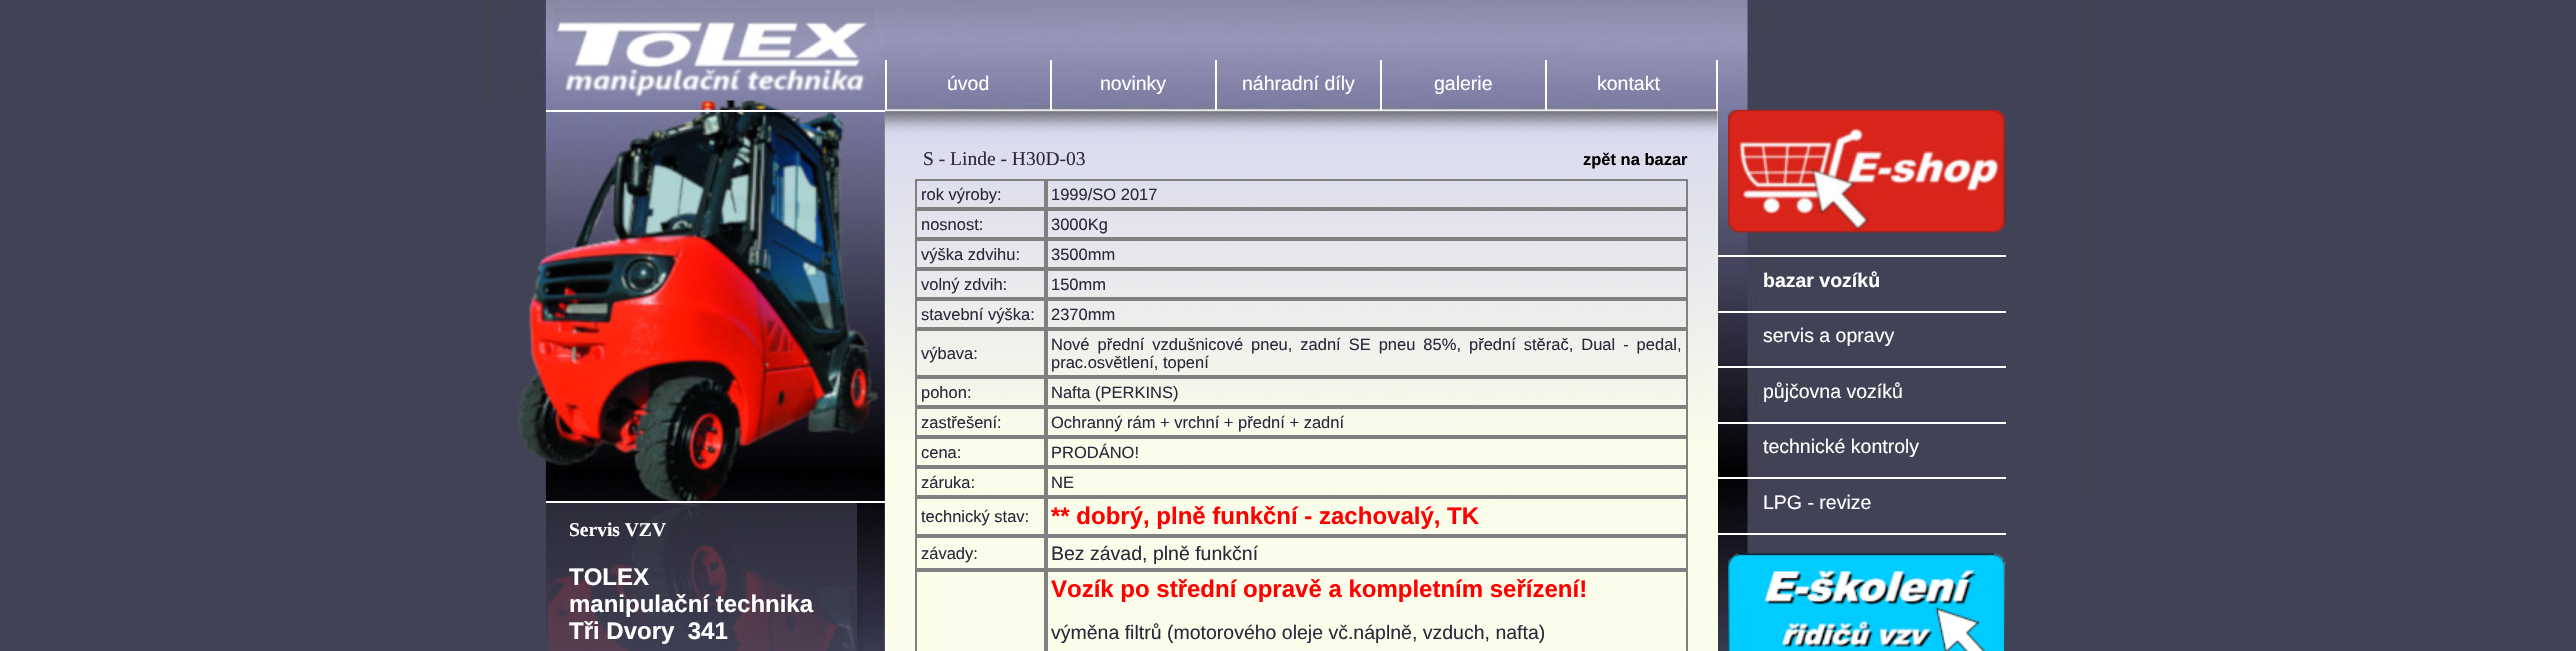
void draw(SkCanvas* canvas) {
	SkPaint fill;
	fill.setAntiAlias(true);
	auto makeFont = [&](const char* family, int weight, float size, bool italic = false) {
		SkFontStyle style(weight, SkFontStyle::kNormal_Width,
			italic ? SkFontStyle::kItalic_Slant : SkFontStyle::kUpright_Slant);
		SkFont result(fontMgr->matchFamilyStyle(family, style), size);
		result.setSubpixel(true);
		return result;
	};
	auto text = [&](const char* s, float x, float y, const SkFont& font) {
		canvas->drawString(s, x, y, font, fill);
	};
	auto spacedText = [&](const char* s, float x, float y, const SkFont& font, const SkPaint& ink, float letter, float word) {
		std::vector<SkGlyphID> glyphs(font.countText(s, strlen(s), SkTextEncoding::kUTF8));
		std::vector<float> xs(glyphs.size());
		font.textToGlyphs(s, strlen(s), SkTextEncoding::kUTF8, glyphs);
		font.getXPos(glyphs, xs, x);
		float extra = 0;
		for (size_t i = 0; i < glyphs.size(); i++) {
			xs[i] += extra;
			extra += letter + word * (glyphs[i] == font.unicharToGlyph(' '));
		}
		canvas->drawTextBlob(SkTextBlob::MakeFromPosHGlyphs(glyphs, xs, y, font), 0, 0, ink);
	};
	auto box = [&](float l, float t, float r, float b) {
		canvas->drawRect(SkRect::MakeLTRB(l, t, r, b), fill);
	};
	auto picture = [&](const char* path, float l, float t, float r, float b) {
		auto image = SkImages::DeferredFromEncodedData(SkData::MakeFromFileName(path));
		canvas->drawImageRect(image, SkRect::MakeLTRB(l, t, r, b), SkSamplingOptions());
	};
	canvas->clear(0xFF424257);
	picture("image0.png", 486, 0, 2091, 494);
	picture("image1.png", 546, 0, 1758, 651);
	picture("image2.png", 553, 8, 874, 101);
	fill.setColor(0xFFFFFFFF);
	box(1716, 60, 1718, 110);
	box(885, 60, 887, 110);
	box(1050, 60, 1052, 110);
	box(1215, 60, 1217, 110);
	box(1380, 60, 1382, 110);
	box(1545, 60, 1547, 110);
	fill.setColor(0xFFF3FDEA);
	box(1717, 110, 1718, 651);
	picture("image3.png", 885, 109, 1718, 651);
	fill.setStyle(SkPaint::kStroke_Style);
	fill.setStrokeWidth(2);
	fill.setColor(0xFF808080);
	canvas->drawRect(SkRect::MakeLTRB(916, 180, 1045, 208), fill);
	canvas->drawRect(SkRect::MakeLTRB(1047, 180, 1687, 208), fill);
	canvas->drawRect(SkRect::MakeLTRB(916, 210, 1045, 238), fill);
	canvas->drawRect(SkRect::MakeLTRB(1047, 210, 1687, 238), fill);
	canvas->drawRect(SkRect::MakeLTRB(916, 240, 1045, 268), fill);
	canvas->drawRect(SkRect::MakeLTRB(1047, 240, 1687, 268), fill);
	canvas->drawRect(SkRect::MakeLTRB(916, 270, 1045, 298), fill);
	canvas->drawRect(SkRect::MakeLTRB(1047, 270, 1687, 298), fill);
	canvas->drawRect(SkRect::MakeLTRB(916, 300, 1045, 328), fill);
	canvas->drawRect(SkRect::MakeLTRB(1047, 300, 1687, 328), fill);
	canvas->drawRect(SkRect::MakeLTRB(916, 330, 1045, 376), fill);
	canvas->drawRect(SkRect::MakeLTRB(1047, 330, 1687, 376), fill);
	canvas->drawRect(SkRect::MakeLTRB(916, 378, 1045, 406), fill);
	canvas->drawRect(SkRect::MakeLTRB(1047, 378, 1687, 406), fill);
	canvas->drawRect(SkRect::MakeLTRB(916, 408, 1045, 436), fill);
	canvas->drawRect(SkRect::MakeLTRB(1047, 408, 1687, 436), fill);
	canvas->drawRect(SkRect::MakeLTRB(916, 438, 1045, 466), fill);
	canvas->drawRect(SkRect::MakeLTRB(1047, 438, 1687, 466), fill);
	canvas->drawRect(SkRect::MakeLTRB(916, 468, 1045, 496), fill);
	canvas->drawRect(SkRect::MakeLTRB(1047, 468, 1687, 496), fill);
	canvas->drawRect(SkRect::MakeLTRB(916, 498, 1045, 535), fill);
	canvas->drawRect(SkRect::MakeLTRB(1047, 498, 1687, 535), fill);
	canvas->drawRect(SkRect::MakeLTRB(916, 537, 1045, 569), fill);
	canvas->drawRect(SkRect::MakeLTRB(1047, 537, 1687, 569), fill);
	canvas->drawRect(SkRect::MakeLTRB(916, 571, 1045, 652), fill);
	canvas->drawRect(SkRect::MakeLTRB(1047, 571, 1687, 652), fill);
	picture("image4.png", 1728, 109, 2006, 233);
	fill.setStyle(SkPaint::kFill_Style);
	fill.setColor(0xFFFFFFFF);
	box(1718, 255, 2006, 257);
	box(1718, 311, 2006, 313);
	box(1718, 366, 2006, 368);
	box(1718, 422, 2006, 424);
	box(1718, 477, 2006, 479);
	box(1718, 533, 2006, 535);
	picture("image5.png", 1728, 553, 2006, 651);
	box(546, 110, 885, 112);
	box(546, 501, 885, 503);
	fill.setColor(0x99424257);
	box(546, 503, 857, 651);
	auto font1 = makeFont("Liberation Sans", 400, 19.5f);
	fill.setColor(0xFFFFFFFF);
	text("úvod", 947, 90, font1);
	text("novinky", 1100, 90, font1);
	text("náhradní díly", 1242, 90, font1);
	text("galerie", 1434, 90, font1);
	text("kontakt", 1597, 90, font1);
	auto font2 = makeFont("Liberation Serif", 400, 19.5f);
	fill.setColor(0xFF2B283C);
	text("S - Linde - H30D-03", 923, 165, font2);
	auto font3 = makeFont("Liberation Sans", 700, 16.5f);
	fill.setColor(0xFF000000);
	text("zpět na bazar", 1583, 165, font3);
	auto font4 = makeFont("Liberation Sans", 400, 16.5f);
	fill.setColor(0xFF2B283C);
	text("rok výroby:", 921, 200, font4);
	text("1999/SO 2017", 1051, 200, font4);
	text("nosnost:", 921, 230, font4);
	text("3000Kg", 1051, 230, font4);
	text("výška zdvihu:", 921, 260, font4);
	text("3500mm", 1051, 260, font4);
	text("volný zdvih:", 921, 290, font4);
	text("150mm", 1051, 290, font4);
	text("stavební výška:", 921, 320, font4);
	text("2370mm", 1051, 320, font4);
	text("výbava:", 921, 359, font4);
	spacedText("Nové přední vzdušnicové pneu, zadní SE pneu 85%, přední stěrač, Dual - pedal,", 1051, 350, font4, fill, 0, 3.4f);
	text("prac.osvětlení, topení", 1051, 368, font4);
	text("pohon:", 921, 398, font4);
	text("Nafta (PERKINS)", 1051, 398, font4);
	text("zastřešení:", 921, 428, font4);
	text("Ochranný rám + vrchní + přední + zadní", 1051, 428, font4);
	text("cena:", 921, 458, font4);
	text("PRODÁNO!", 1051, 458, font4);
	text("záruka:", 921, 488, font4);
	text("NE", 1051, 488, font4);
	text("technický stav:", 921, 522, font4);
	auto font5 = makeFont("Liberation Sans", 700, 24);
	fill.setColor(0xFFFF0000);
	text("** dobrý, plně funkční - zachovalý, TK", 1051, 524, font5);
	fill.setColor(0xFF2B283C);
	text("závady:", 921, 559, font4);
	text("Bez závad, plně funkční", 1051, 560, font1);
	fill.setColor(0xFFFF0000);
	text("Vozík po střední opravě a kompletním seřízení!", 1051, 597, font5);
	fill.setColor(0xFF2B283C);
	text("výměna filtrů (motorového oleje vč.náplně, vzduch, nafta)", 1051, 639, font1);
	auto font6 = makeFont("Liberation Sans", 700, 19.5f);
	fill.setColor(0xFFFFFFFF);
	text("bazar vozíků", 1763, 287, font6);
	text("servis a opravy", 1763, 342, font1);
	text("půjčovna vozíků", 1763, 398, font1);
	text("technické kontroly", 1763, 453, font1);
	text("LPG - revize", 1763, 509, font1);
	auto font7 = makeFont("Liberation Serif", 700, 19.5f);
	text("Servis VZV", 569, 536, font7);
	text("TOLEX", 569, 585, font5);
	text("manipulační technika", 569, 612, font5);
	text("Tři Dvory  341", 569, 639, font5);
}
